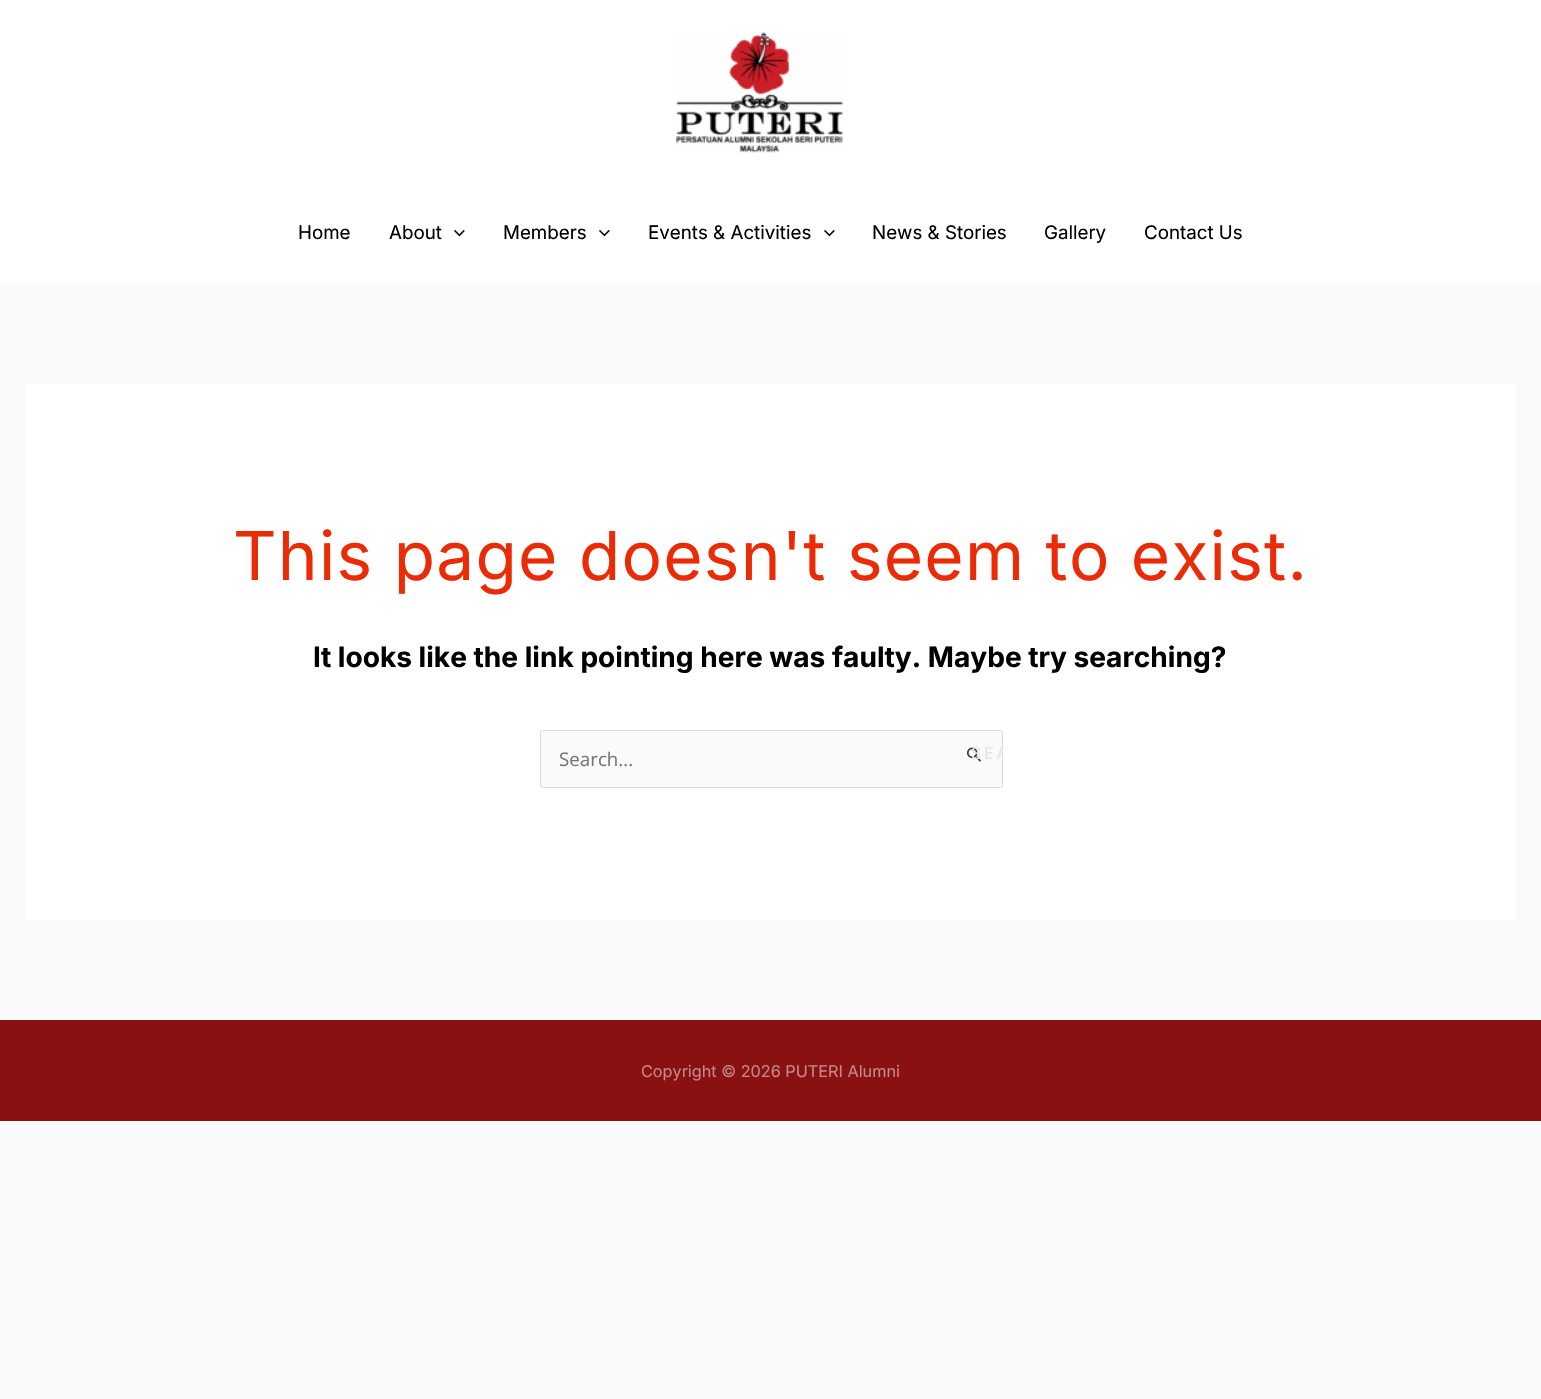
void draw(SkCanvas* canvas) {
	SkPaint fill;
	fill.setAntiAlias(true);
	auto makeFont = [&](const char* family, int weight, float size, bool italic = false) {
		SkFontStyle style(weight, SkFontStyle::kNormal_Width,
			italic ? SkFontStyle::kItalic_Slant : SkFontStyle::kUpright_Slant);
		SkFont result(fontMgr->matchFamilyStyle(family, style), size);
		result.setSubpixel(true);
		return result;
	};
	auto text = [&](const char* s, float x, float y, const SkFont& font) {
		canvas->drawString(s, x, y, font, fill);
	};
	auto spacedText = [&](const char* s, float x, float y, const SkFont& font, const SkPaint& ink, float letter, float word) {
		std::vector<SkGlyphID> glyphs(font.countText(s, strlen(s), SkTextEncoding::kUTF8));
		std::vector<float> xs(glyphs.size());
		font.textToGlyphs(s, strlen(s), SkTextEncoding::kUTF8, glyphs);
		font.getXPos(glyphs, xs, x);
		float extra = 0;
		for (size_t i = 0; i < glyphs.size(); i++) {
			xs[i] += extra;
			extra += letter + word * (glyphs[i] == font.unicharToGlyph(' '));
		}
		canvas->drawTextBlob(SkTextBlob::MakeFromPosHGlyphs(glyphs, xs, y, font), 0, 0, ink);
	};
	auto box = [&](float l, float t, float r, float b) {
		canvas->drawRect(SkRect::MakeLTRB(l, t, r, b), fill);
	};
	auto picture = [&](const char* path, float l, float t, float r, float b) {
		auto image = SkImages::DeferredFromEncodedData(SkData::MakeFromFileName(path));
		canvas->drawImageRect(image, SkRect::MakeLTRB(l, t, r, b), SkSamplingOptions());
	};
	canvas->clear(0xFFF9FAFB);
	fill.setColor(0xFFFFFFFF);
	box(0, 0, 1541, 283);
	picture("image0.png", 676, 32, 844, 153);
	picture("image1.png", 454, 230, 465, 237);
	picture("image1.png", 599, 230, 610, 237);
	picture("image1.png", 824, 230, 835, 237);
	box(25, 383, 1516, 920);
	fill.setColor(0xFFFAFAFA);
	canvas->drawRoundRect(SkRect::MakeLTRB(540.5f, 730.5f, 1002.5f, 787.5f), 2, 2, fill);
	fill.setStyle(SkPaint::kStroke_Style);
	fill.setStrokeWidth(1);
	fill.setColor(0xFFDDDDDD);
	canvas->drawRoundRect(SkRect::MakeLTRB(540.5f, 730.5f, 1002.5f, 787.5f), 2, 2, fill);
	picture("image2.png", 967, 747, 981, 762);
	fill.setStyle(SkPaint::kFill_Style);
	fill.setColor(0xFF891111);
	box(0, 1020, 1541, 1121);
	auto font1 = makeFont("Inter", 400, 18.75f);
	fill.setColor(0xFF000000);
	text("Home", 298, 239, font1);
	text("About", 389, 239, font1);
	text("Members", 503, 239, font1);
	text("Events & Activities", 648, 239, font1);
	text("News & Stories", 872, 239, font1);
	text("Gallery", 1044, 239, font1);
	text("Contact Us", 1144, 239, font1);
	auto font2 = makeFont("Inter", 400, 67.5f);
	fill.setColor(0xFFEB2B05);
	spacedText("This page doesn't seem to exist.", 233, 580, font2, fill, 1.25f, 0);
	auto font3 = makeFont("Inter", 700, 28.1f);
	fill.setColor(0xFF000000);
	text("It looks like the link pointing here was faulty. Maybe try searching?", 313, 667, font3);
	auto font4 = makeFont("Open Sans", 400, 18.75f);
	fill.setColor(0xFF757575);
	text("Search...", 559, 766, font4);
	canvas->save();
	canvas->clipPath(SkPathBuilder().moveTo(948.5f, 730).lineTo(1000.5f, 730).cubicTo(1002, 730, 1003, 731, 1003, 732.5f).lineTo(1003, 776.5f).cubicTo(1003, 778, 1002, 779, 1000.5f, 779).lineTo(948.5f, 779).cubicTo(947, 779, 946, 778, 946, 776.5f).lineTo(946, 732.5f).cubicTo(946, 731, 947, 730, 948.5f, 730).close().detach(), true);
	auto font5 = makeFont("Inter", 400, 16.25f);
	fill.setColor(0xFFE5E5E5);
	spacedText("SEA", 971, 759, font5, fill, 2.5f, 0);
	canvas->restore();
	fill.setColor(0xFFC48888);
	text("Copyright © 2026 PUTERI Alumni", 641, 1077, font5);
}
